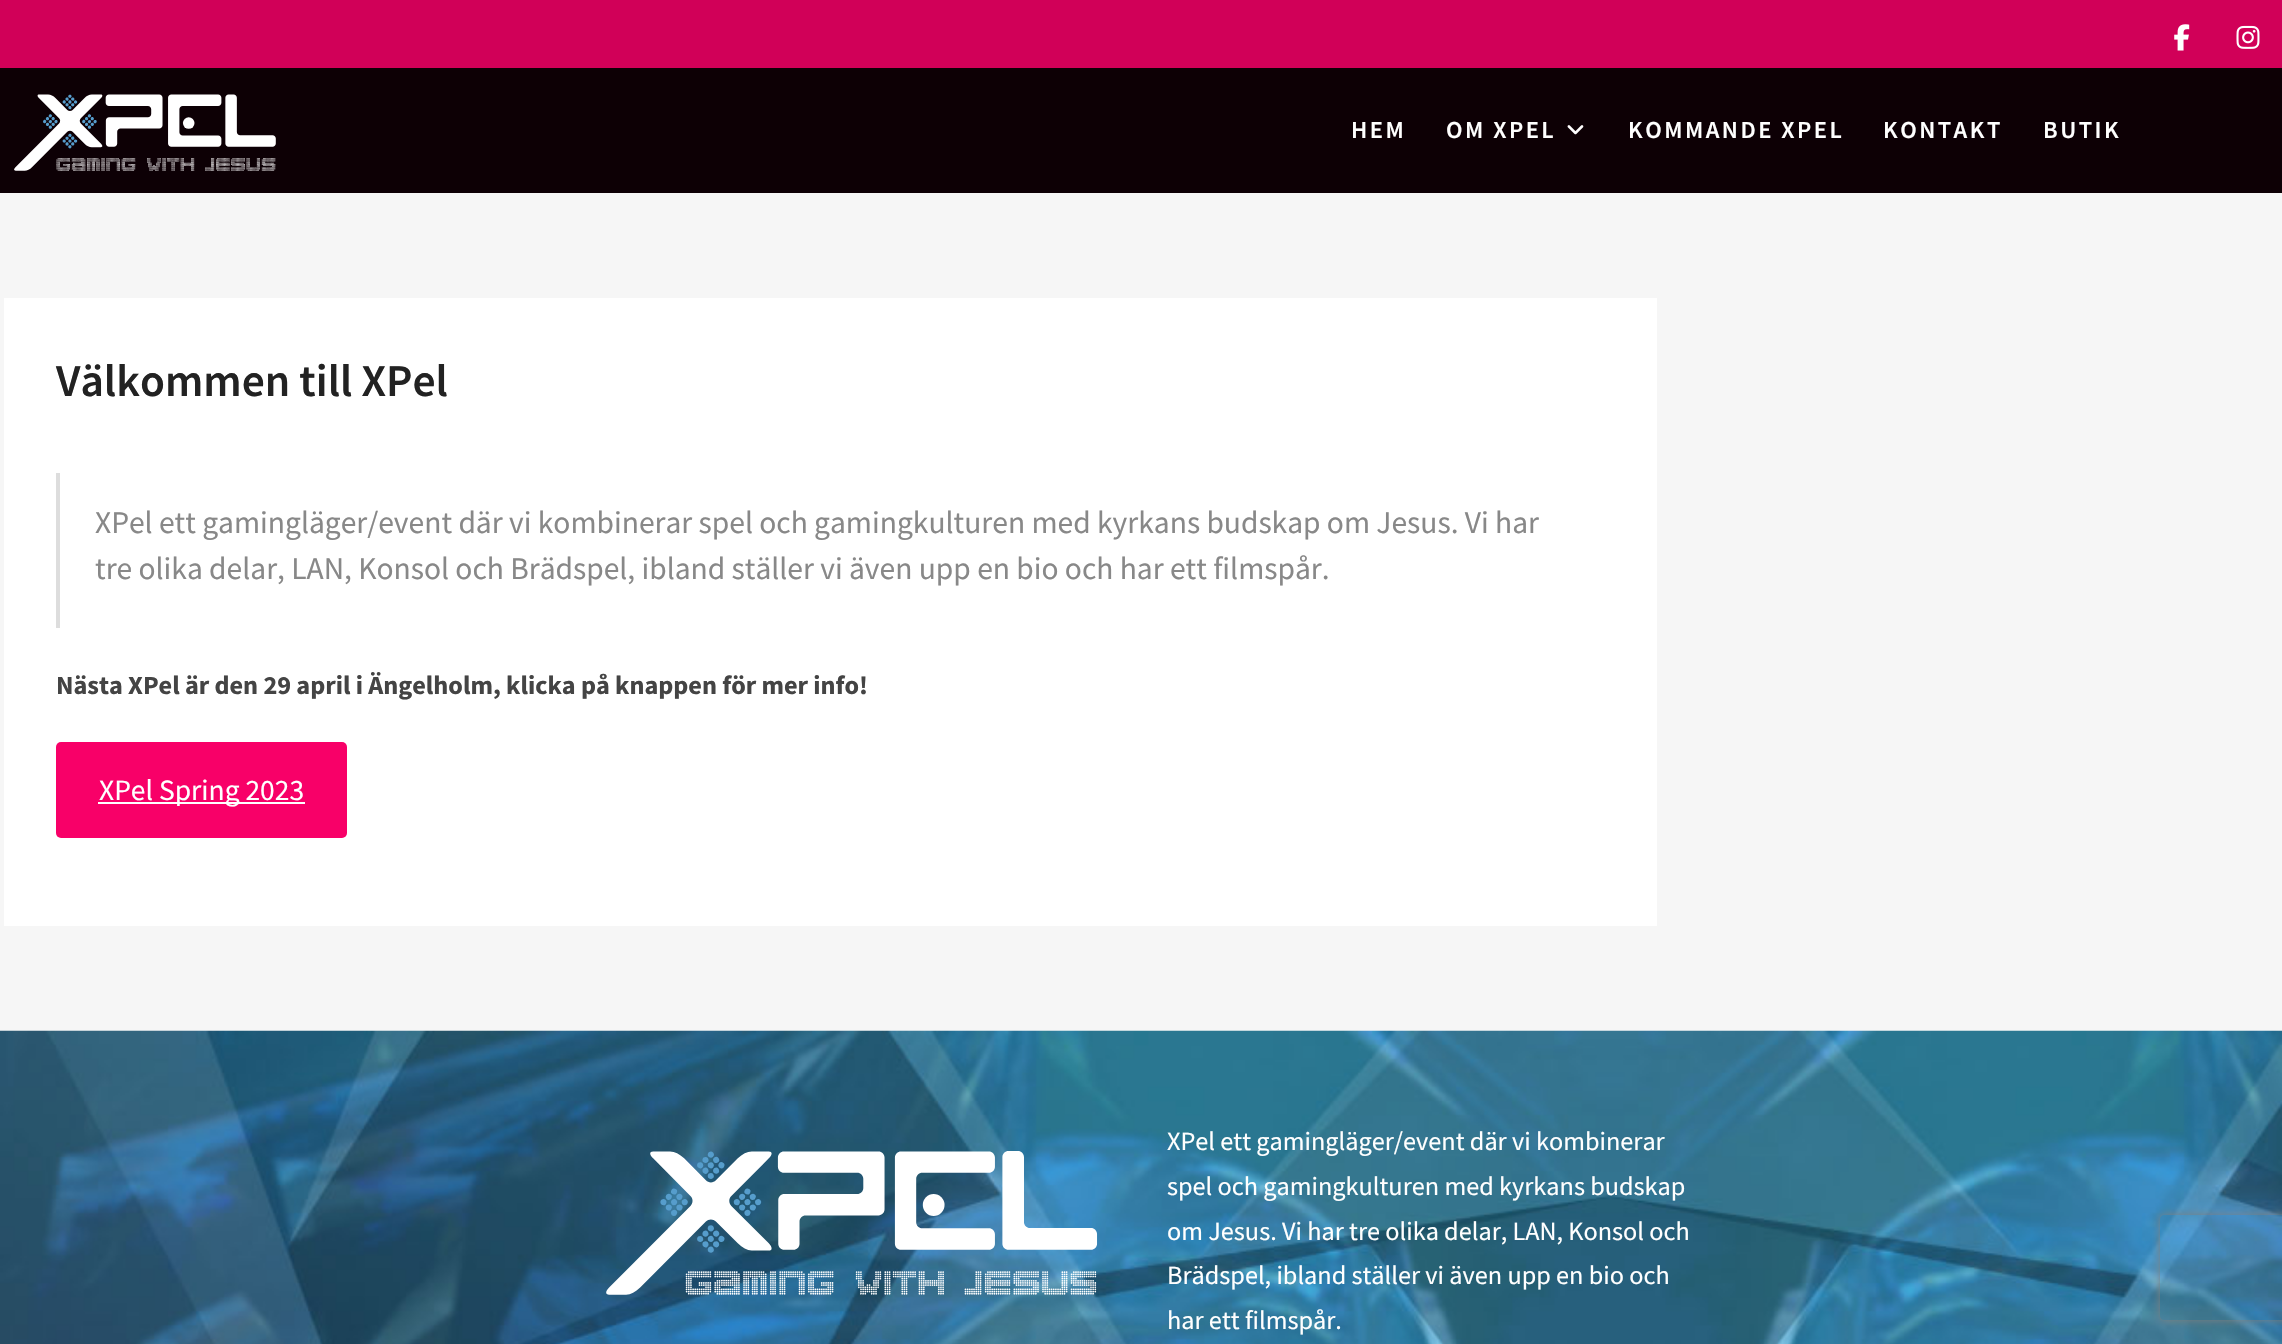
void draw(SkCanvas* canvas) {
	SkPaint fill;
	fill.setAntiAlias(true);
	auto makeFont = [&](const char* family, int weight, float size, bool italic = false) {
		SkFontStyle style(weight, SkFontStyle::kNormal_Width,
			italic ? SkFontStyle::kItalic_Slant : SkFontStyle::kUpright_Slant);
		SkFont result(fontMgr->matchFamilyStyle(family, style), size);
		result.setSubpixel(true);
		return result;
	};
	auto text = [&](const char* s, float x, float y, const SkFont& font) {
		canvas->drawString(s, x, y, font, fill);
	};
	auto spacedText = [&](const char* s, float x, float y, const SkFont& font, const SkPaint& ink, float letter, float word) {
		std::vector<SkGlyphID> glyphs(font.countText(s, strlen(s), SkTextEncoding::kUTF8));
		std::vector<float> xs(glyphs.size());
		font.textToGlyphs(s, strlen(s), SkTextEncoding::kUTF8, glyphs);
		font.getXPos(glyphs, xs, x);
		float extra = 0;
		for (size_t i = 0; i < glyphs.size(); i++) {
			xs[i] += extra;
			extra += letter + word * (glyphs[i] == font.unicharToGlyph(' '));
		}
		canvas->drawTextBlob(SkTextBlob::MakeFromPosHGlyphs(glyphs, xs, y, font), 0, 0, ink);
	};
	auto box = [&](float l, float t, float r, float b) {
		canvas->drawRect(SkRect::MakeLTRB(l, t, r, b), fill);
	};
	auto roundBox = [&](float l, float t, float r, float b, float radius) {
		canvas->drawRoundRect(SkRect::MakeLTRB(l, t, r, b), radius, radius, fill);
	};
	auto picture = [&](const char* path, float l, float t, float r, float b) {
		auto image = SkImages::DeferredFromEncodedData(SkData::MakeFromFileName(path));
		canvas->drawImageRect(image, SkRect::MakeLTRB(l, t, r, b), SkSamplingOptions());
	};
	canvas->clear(0xFFF6F6F6);
	fill.setColor(0xFFD10058);
	box(0, 0, 2282, 68);
	picture("image0.png", 2174, 24, 2190, 51);
	picture("image1.png", 2236, 25, 2260, 49);
	fill.setColor(0xFF0D0005);
	box(0, 68, 2282, 193);
	picture("image2.png", 14, 94, 276, 171);
	picture("image3.png", 1567, 125, 1584, 135);
	fill.setColor(0xFFFFFFFF);
	box(4, 298, 1657, 926);
	fill.setColor(0xFFDDDDDD);
	box(56, 473, 60, 628);
	fill.setColor(0xFFF80068);
	roundBox(56, 742, 347, 838, 5);
	fill.setColor(0xFFFFFFFF);
	box(98, 802, 305, 804);
	picture("image4.png", 0, 1030, 2282, 1344);
	picture("image5.png", 606, 1151, 1098, 1295);
	canvas->save();
	canvas->clipPath(SkPathBuilder(SkPathFillType::kEvenOdd).moveTo(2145, 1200).lineTo(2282, 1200).lineTo(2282, 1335).lineTo(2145, 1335).close().moveTo(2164, 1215).lineTo(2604, 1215).cubicTo(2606, 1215, 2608, 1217, 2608, 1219).lineTo(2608, 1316).cubicTo(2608, 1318, 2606, 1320, 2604, 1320).lineTo(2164, 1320).cubicTo(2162, 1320, 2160, 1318, 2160, 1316).lineTo(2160, 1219).cubicTo(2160, 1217, 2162, 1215, 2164, 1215).close().detach(), true);
	fill.setColor(0xFF808080);
	fill.setMaskFilter(SkMaskFilter::MakeBlur(kNormal_SkBlurStyle, 4.5f));
	canvas->drawRoundRect(SkRect::MakeLTRB(2160, 1215, 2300, 1320), 4, 4, fill);
	fill.setMaskFilter(nullptr);
	canvas->restore();
	auto font1 = makeFont("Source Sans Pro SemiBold", 600, 24.5f);
	fill.setColor(0xFFFFFFFF);
	spacedText("HEM", 1351, 138, font1, fill, 2.5f, 0);
	spacedText("OM XPEL", 1446, 138, font1, fill, 2.5f, 0);
	spacedText("KOMMANDE XPEL", 1628, 138, font1, fill, 2.5f, 0);
	spacedText("KONTAKT", 1883, 138, font1, fill, 2.5f, 0);
	spacedText("BUTIK", 2043, 138, font1, fill, 2.5f, 0);
	auto font2 = makeFont("Source Sans Pro SemiBold", 600, 45.5f);
	fill.setColor(0xFF222222);
	text("Välkommen till XPel", 56, 396, font2);
	auto font3 = makeFont("Source Sans Pro", 400, 31.5f);
	fill.setColor(0xFF888888);
	text("XPel ett gamingläger/event där vi kombinerar spel och gamingkulturen med kyrkans budskap om Jesus. Vi har", 95, 533, font3);
	text("tre olika delar, LAN, Konsol och Brädspel, ibland ställer vi även upp en bio och har ett filmspår.", 95, 579, font3);
	auto font4 = makeFont("Source Sans Pro", 700, 26.25f);
	fill.setColor(0xFF444444);
	text("Nästa XPel är den 29 april i Ängelholm, klicka på knappen för mer info!", 56, 694, font4);
	auto font5 = makeFont("Source Sans Pro", 400, 29.5f);
	fill.setColor(0xFFFFFFFF);
	text("XPel Spring 2023", 99, 800, font5);
	auto font6 = makeFont("Source Sans Pro", 400, 26.25f);
	text("XPel ett gamingläger/event där vi kombinerar", 1167, 1150, font6);
	text("spel och gamingkulturen med kyrkans budskap", 1167, 1195, font6);
	text("om Jesus. Vi har tre olika delar, LAN, Konsol och", 1167, 1240, font6);
	text("Brädspel, ibland ställer vi även upp en bio och", 1167, 1284, font6);
	text("har ett filmspår.", 1167, 1329, font6);
}
